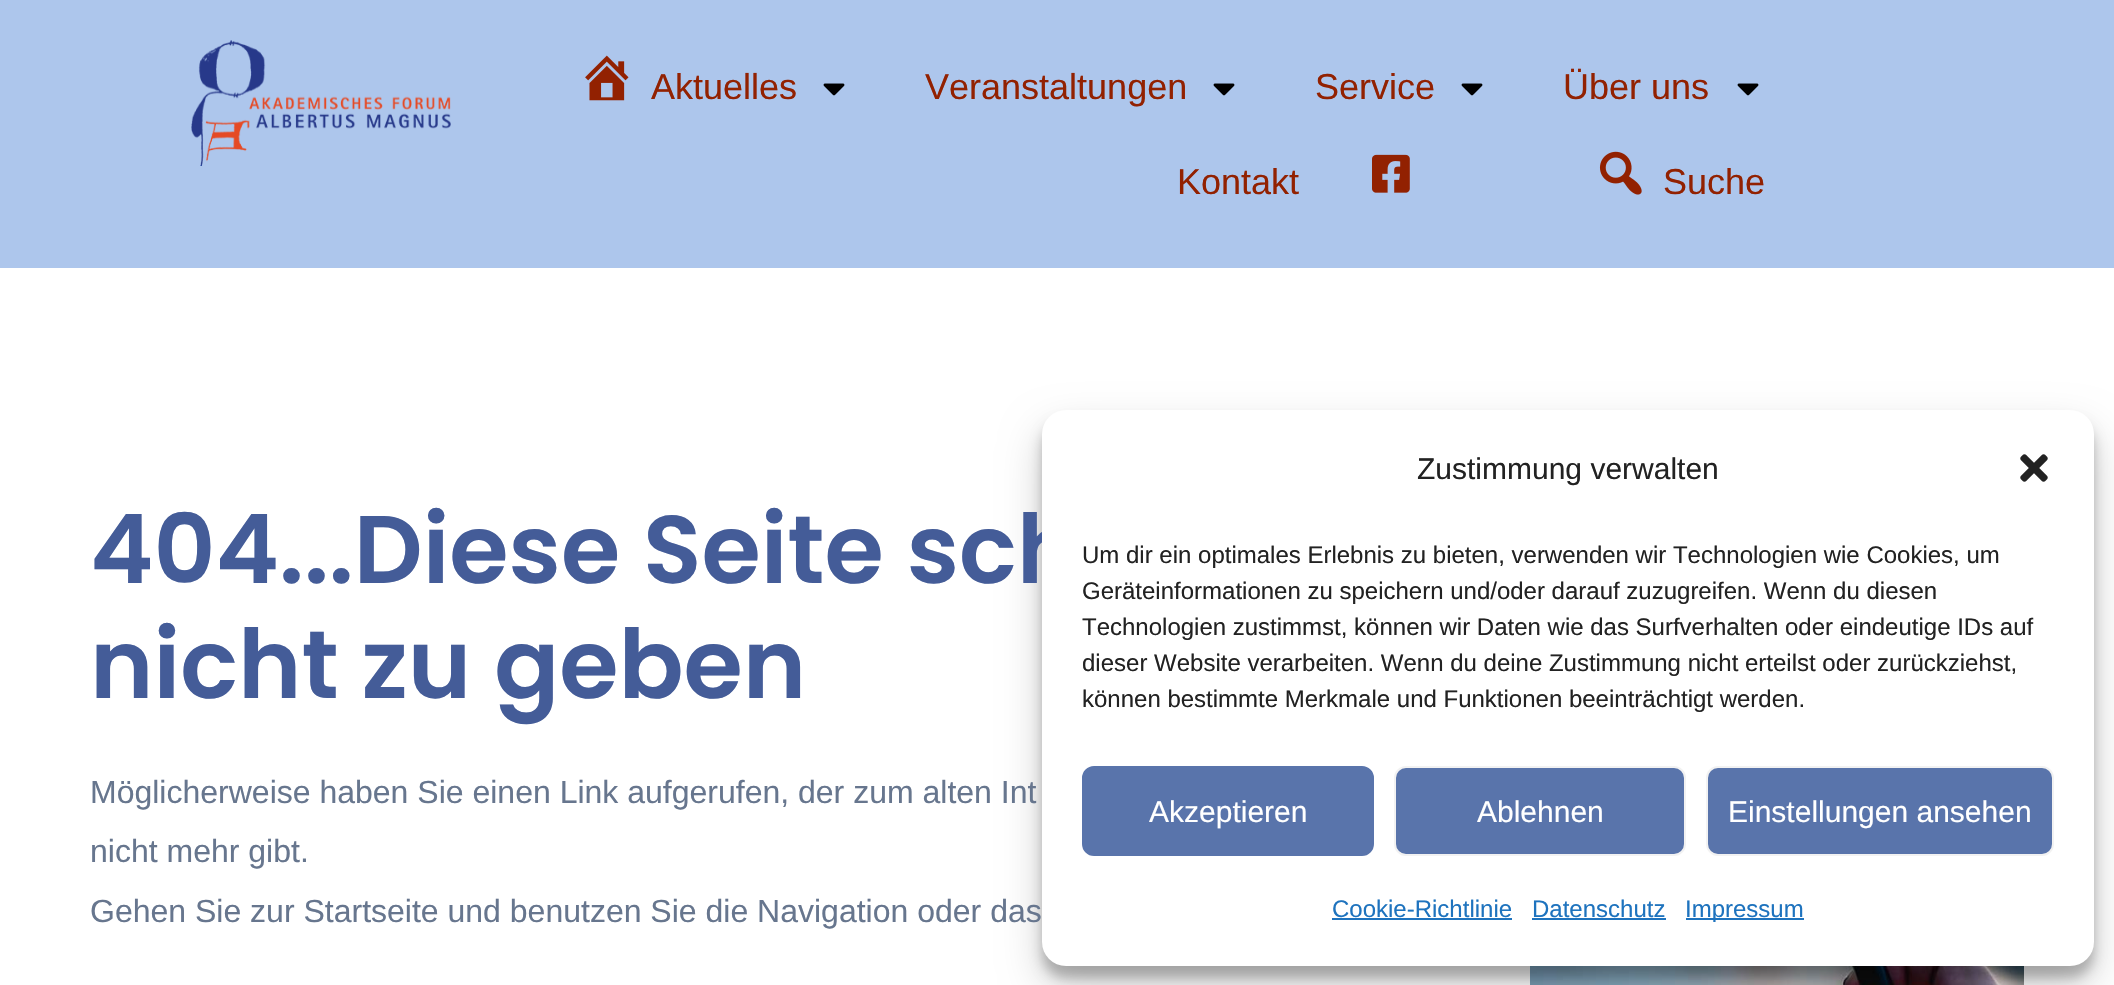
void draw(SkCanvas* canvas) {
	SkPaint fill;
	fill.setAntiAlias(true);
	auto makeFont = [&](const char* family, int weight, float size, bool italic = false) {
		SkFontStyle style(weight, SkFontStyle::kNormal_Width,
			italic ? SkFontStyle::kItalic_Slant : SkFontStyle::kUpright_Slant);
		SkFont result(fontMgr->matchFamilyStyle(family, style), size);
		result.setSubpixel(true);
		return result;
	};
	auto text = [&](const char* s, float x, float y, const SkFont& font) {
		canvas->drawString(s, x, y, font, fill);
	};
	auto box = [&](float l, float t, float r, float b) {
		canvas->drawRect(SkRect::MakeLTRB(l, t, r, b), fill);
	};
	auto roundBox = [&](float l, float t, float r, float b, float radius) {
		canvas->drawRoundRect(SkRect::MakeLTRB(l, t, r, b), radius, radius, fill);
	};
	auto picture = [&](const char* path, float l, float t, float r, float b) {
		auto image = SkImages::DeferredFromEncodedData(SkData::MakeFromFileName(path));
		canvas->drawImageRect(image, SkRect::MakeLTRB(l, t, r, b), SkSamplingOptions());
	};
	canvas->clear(0xFFFFFFFF);
	fill.setColor(0xFFADC6EC);
	box(0, 0, 2114, 268);
	picture("image0.png", 191, 40, 451, 166);
	picture("image1.png", 585, 55, 629, 101);
	picture("image2.png", 823, 83, 845, 96);
	picture("image2.png", 1213, 83, 1235, 96);
	picture("image2.png", 1461, 83, 1483, 96);
	picture("image2.png", 1737, 83, 1759, 96);
	picture("image3.png", 1372, 154, 1410, 193);
	picture("image4.png", 1599, 151, 1642, 195);
	picture("image5.png", 1530, 966, 2024, 985);
	fill.setColor(0x3B000000);
	fill.setMaskFilter(SkMaskFilter::MakeBlur(kNormal_SkBlurStyle, 6));
	canvas->drawRoundRect(SkRect::MakeLTRB(1042, 422, 2094, 978), 24, 24, fill);
	fill.setMaskFilter(nullptr);
	fill.setColor(0x30000000);
	fill.setMaskFilter(SkMaskFilter::MakeBlur(kNormal_SkBlurStyle, 20));
	canvas->drawRoundRect(SkRect::MakeLTRB(1042, 430, 2094, 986), 24, 24, fill);
	fill.setMaskFilter(nullptr);
	auto font1 = makeFont("Liberation Sans", 400, 36);
	fill.setColor(0xFF922101);
	text("Aktuelles", 651, 99, font1);
	text("Veranstaltungen", 925, 99, font1);
	text("Service", 1315, 99, font1);
	text("Über uns", 1563, 99, font1);
	text("Kontakt", 1177, 194, font1);
	text("Suche", 1663, 194, font1);
	auto font2 = makeFont("Poppins", 600, 96);
	fill.setColor(0xFF445C98);
	text("404...Diese Seite sch", 90, 583, font2);
	text("nicht zu geben", 90, 698, font2);
	auto font3 = makeFont("Liberation Sans", 400, 32);
	fill.setColor(0xFF67768E);
	text("Möglicherweise haben Sie einen Link aufgerufen, der zum alten Int", 90, 803, font3);
	text("nicht mehr gibt.", 90, 862, font3);
	text("Gehen Sie zur Startseite und benutzen Sie die Navigation oder das", 90, 922, font3);
	fill.setColor(0xFFFFFFFF);
	roundBox(1042, 410, 2094, 966, 24);
	auto font4 = makeFont("Liberation Sans", 400, 30);
	fill.setColor(0xFF222222);
	text("Zustimmung verwalten", 1417, 479, font4);
	picture("image6.png", 2020, 454, 2048, 482);
	auto font5 = makeFont("Liberation Sans", 400, 24);
	text("Um dir ein optimales Erlebnis zu bieten, verwenden wir Technologien wie Cookies, um", 1082, 563, font5);
	text("Geräteinformationen zu speichern und/oder darauf zuzugreifen. Wenn du diesen", 1082, 599, font5);
	text("Technologien zustimmst, können wir Daten wie das Surfverhalten oder eindeutige IDs auf", 1082, 635, font5);
	text("dieser Website verarbeiten. Wenn du deine Zustimmung nicht erteilst oder zurückziehst,", 1082, 671, font5);
	text("können bestimmte Merkmale und Funktionen beeinträchtigt werden.", 1082, 707, font5);
	fill.setColor(0xFF5974AB);
	canvas->drawRoundRect(SkRect::MakeLTRB(1083, 767, 1373, 855), 11, 11, fill);
	fill.setStyle(SkPaint::kStroke_Style);
	fill.setStrokeWidth(2);
	canvas->drawRoundRect(SkRect::MakeLTRB(1083, 767, 1373, 855), 11, 11, fill);
	fill.setStyle(SkPaint::kFill_Style);
	fill.setColor(0xFFFFFFFF);
	text("Akzeptieren", 1149, 822, font4);
	fill.setColor(0xFF5974AB);
	canvas->drawRoundRect(SkRect::MakeLTRB(1395, 767, 1685, 855), 11, 11, fill);
	fill.setStyle(SkPaint::kStroke_Style);
	fill.setColor(0xFFF2F2F2);
	canvas->drawRoundRect(SkRect::MakeLTRB(1395, 767, 1685, 855), 11, 11, fill);
	fill.setStyle(SkPaint::kFill_Style);
	fill.setColor(0xFFFFFFFF);
	text("Ablehnen", 1477, 822, font4);
	fill.setColor(0xFF5974AB);
	canvas->drawRoundRect(SkRect::MakeLTRB(1707, 767, 2053, 855), 11, 11, fill);
	fill.setStyle(SkPaint::kStroke_Style);
	fill.setColor(0xFFF2F2F2);
	canvas->drawRoundRect(SkRect::MakeLTRB(1707, 767, 2053, 855), 11, 11, fill);
	fill.setStyle(SkPaint::kFill_Style);
	fill.setColor(0xFFFFFFFF);
	text("Einstellungen ansehen", 1728, 822, font4);
	fill.setColor(0xFF1E73BE);
	text("Cookie-Richtlinie", 1332, 917, font5);
	box(1332, 918, 1512, 920);
	text("Datenschutz", 1532, 917, font5);
	box(1532, 918, 1666, 920);
	box(1686, 918, 1804, 920);
	text("Impressum", 1685, 917, font5);
}
